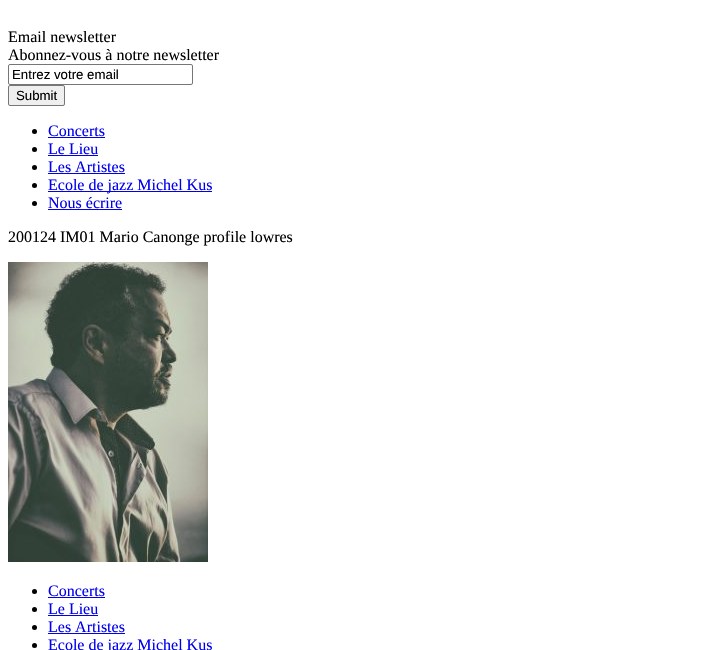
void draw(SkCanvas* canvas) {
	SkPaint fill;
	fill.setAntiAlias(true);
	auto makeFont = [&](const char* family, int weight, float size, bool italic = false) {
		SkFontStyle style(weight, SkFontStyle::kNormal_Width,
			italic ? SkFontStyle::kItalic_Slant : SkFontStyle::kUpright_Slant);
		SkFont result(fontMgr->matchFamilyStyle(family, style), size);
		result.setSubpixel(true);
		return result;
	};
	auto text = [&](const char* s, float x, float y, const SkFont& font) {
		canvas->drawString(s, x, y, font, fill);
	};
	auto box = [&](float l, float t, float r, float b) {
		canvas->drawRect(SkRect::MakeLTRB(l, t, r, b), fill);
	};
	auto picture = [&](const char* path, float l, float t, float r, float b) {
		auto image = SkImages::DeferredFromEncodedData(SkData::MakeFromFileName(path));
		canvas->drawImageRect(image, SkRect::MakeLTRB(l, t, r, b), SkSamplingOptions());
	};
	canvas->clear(0xFFFFFFFF);
	fill.setStyle(SkPaint::kStroke_Style);
	fill.setStrokeWidth(1);
	fill.setColor(0xFF767676);
	canvas->drawRoundRect(SkRect::MakeLTRB(8.5f, 64.5f, 192.5f, 84.5f), 1.5f, 1.5f, fill);
	fill.setStyle(SkPaint::kFill_Style);
	fill.setColor(0xFFEFEFEF);
	canvas->drawRoundRect(SkRect::MakeLTRB(8.5f, 85.5f, 64.5f, 105.5f), 1.5f, 1.5f, fill);
	fill.setStyle(SkPaint::kStroke_Style);
	fill.setColor(0xFF767676);
	canvas->drawRoundRect(SkRect::MakeLTRB(8.5f, 85.5f, 64.5f, 105.5f), 1.5f, 1.5f, fill);
	fill.setStyle(SkPaint::kFill_Style);
	fill.setColor(0xFF000000);
	canvas->drawCircle(34.5f, 131.5f, 2.5f, fill);
	fill.setColor(0xFF0000EE);
	box(48, 137, 105, 138);
	fill.setColor(0xFF000000);
	canvas->drawCircle(34.5f, 149.5f, 2.5f, fill);
	fill.setColor(0xFF0000EE);
	box(48, 155, 98, 156);
	fill.setColor(0xFF000000);
	canvas->drawCircle(34.5f, 167.5f, 2.5f, fill);
	fill.setColor(0xFF0000EE);
	box(48, 173, 125, 174);
	fill.setColor(0xFF000000);
	canvas->drawCircle(34.5f, 185.5f, 2.5f, fill);
	fill.setColor(0xFF0000EE);
	box(48, 191, 212, 192);
	fill.setColor(0xFF000000);
	canvas->drawCircle(34.5f, 203.5f, 2.5f, fill);
	fill.setColor(0xFF0000EE);
	box(48, 209, 122, 210);
	picture("image0.png", 8, 262, 208, 562);
	fill.setColor(0xFF000000);
	canvas->drawCircle(34.5f, 591.5f, 2.5f, fill);
	fill.setColor(0xFF0000EE);
	box(48, 597, 105, 598);
	fill.setColor(0xFF000000);
	canvas->drawCircle(34.5f, 609.5f, 2.5f, fill);
	fill.setColor(0xFF0000EE);
	box(48, 615, 98, 616);
	fill.setColor(0xFF000000);
	canvas->drawCircle(34.5f, 627.5f, 2.5f, fill);
	fill.setColor(0xFF0000EE);
	box(48, 633, 125, 634);
	fill.setColor(0xFF000000);
	canvas->drawCircle(34.5f, 645.5f, 2.5f, fill);
	auto font1 = makeFont("Liberation Serif", 400, 16);
	text("Email newsletter", 8, 42, font1);
	text("Abonnez-vous à notre newsletter", 8, 60, font1);
	auto font2 = makeFont("Liberation Sans", 400, 13.25f);
	text("Entrez votre email", 12, 79, font2);
	text("Submit", 16, 100, font2);
	fill.setColor(0xFF0000EE);
	text("Concerts", 48, 136, font1);
	text("Le Lieu", 48, 154, font1);
	text("Les Artistes", 48, 172, font1);
	text("Ecole de jazz Michel Kus", 48, 190, font1);
	text("Nous écrire", 48, 208, font1);
	fill.setColor(0xFF000000);
	text("200124 IM01 Mario Canonge profile lowres", 8, 242, font1);
	fill.setColor(0xFF0000EE);
	text("Concerts", 48, 596, font1);
	text("Le Lieu", 48, 614, font1);
	text("Les Artistes", 48, 632, font1);
	text("Ecole de jazz Michel Kus", 48, 650, font1);
}
